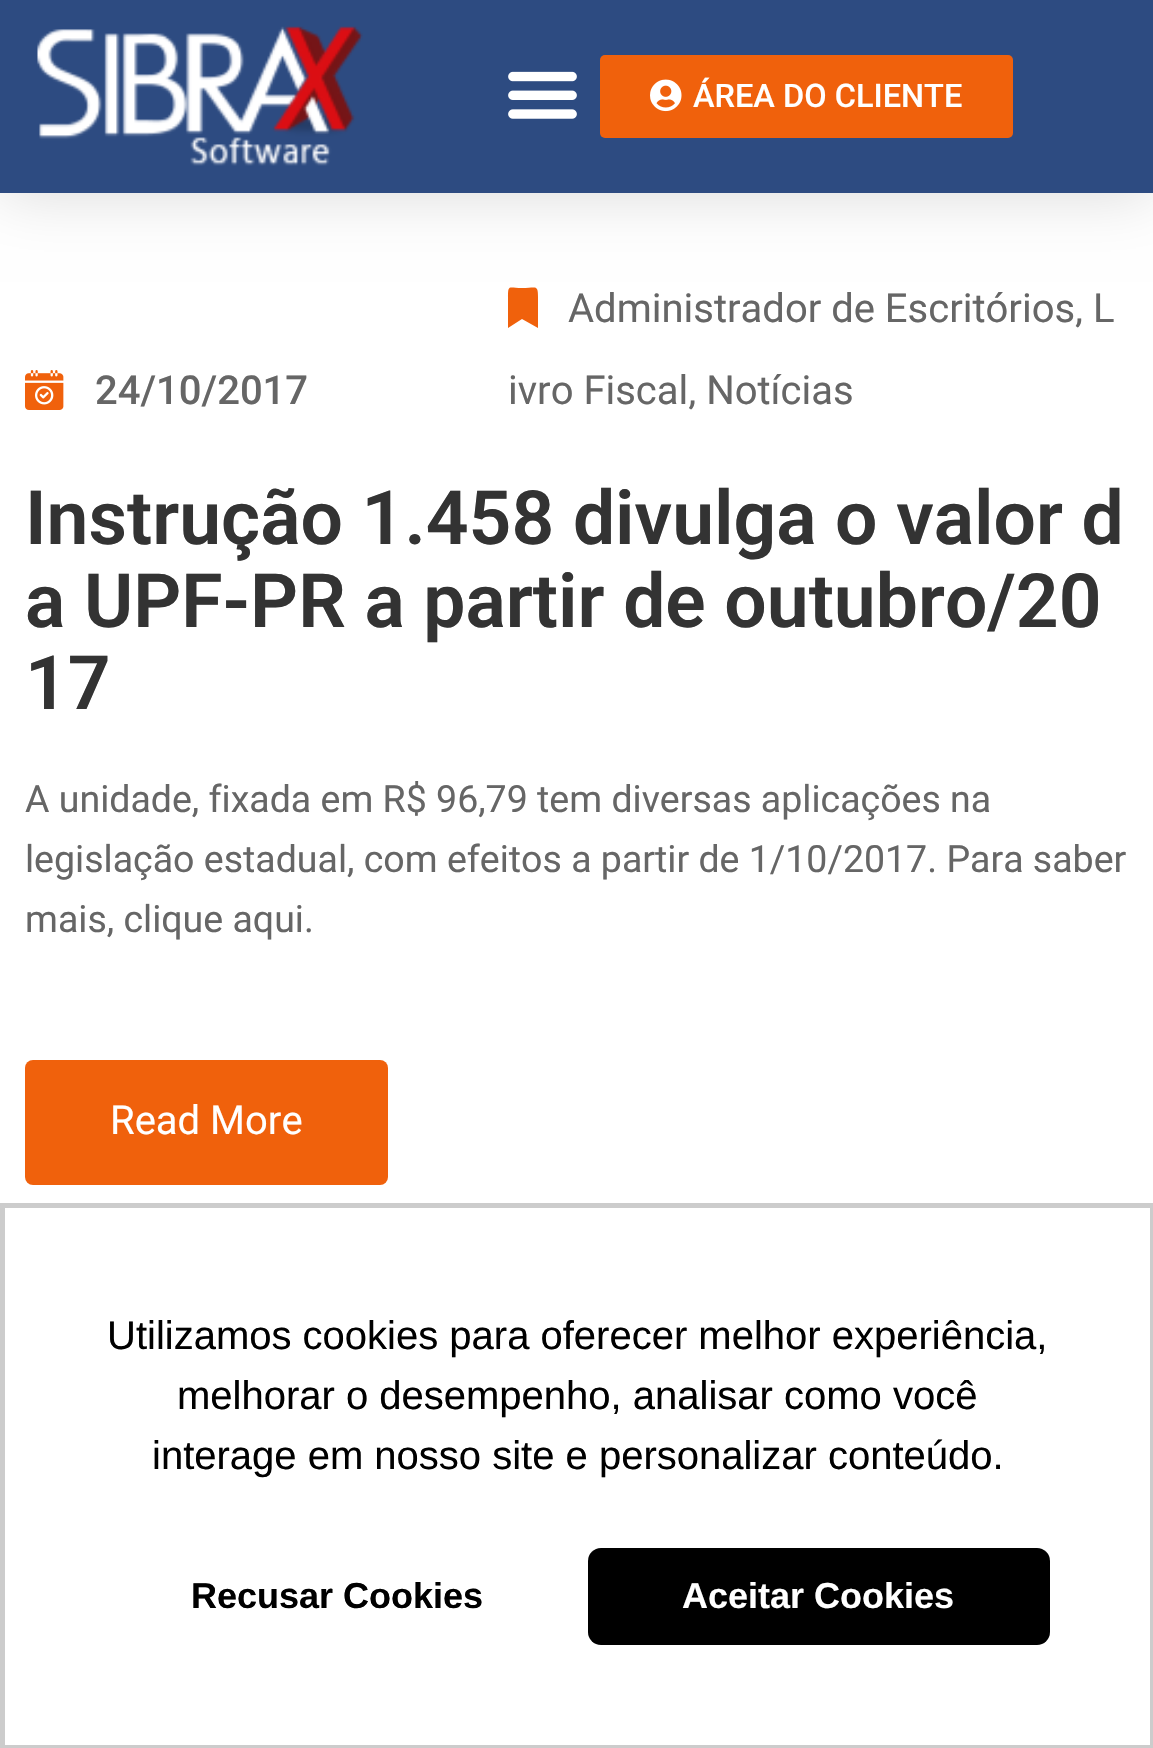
void draw(SkCanvas* canvas) {
	SkPaint fill;
	fill.setAntiAlias(true);
	auto makeFont = [&](const char* family, int weight, float size, bool italic = false) {
		SkFontStyle style(weight, SkFontStyle::kNormal_Width,
			italic ? SkFontStyle::kItalic_Slant : SkFontStyle::kUpright_Slant);
		SkFont result(fontMgr->matchFamilyStyle(family, style), size);
		result.setSubpixel(true);
		return result;
	};
	auto text = [&](const char* s, float x, float y, const SkFont& font) {
		canvas->drawString(s, x, y, font, fill);
	};
	auto box = [&](float l, float t, float r, float b) {
		canvas->drawRect(SkRect::MakeLTRB(l, t, r, b), fill);
	};
	auto roundBox = [&](float l, float t, float r, float b, float radius) {
		canvas->drawRoundRect(SkRect::MakeLTRB(l, t, r, b), radius, radius, fill);
	};
	auto picture = [&](const char* path, float l, float t, float r, float b) {
		auto image = SkImages::DeferredFromEncodedData(SkData::MakeFromFileName(path));
		canvas->drawImageRect(image, SkRect::MakeLTRB(l, t, r, b), SkSamplingOptions());
	};
	canvas->clear(0xFFFFFFFF);
	fill.setColor(0x26000000);
	fill.setMaskFilter(SkMaskFilter::MakeBlur(kNormal_SkBlurStyle, 30));
	canvas->drawRect(SkRect::MakeLTRB(0, 0, 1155, 193), fill);
	fill.setMaskFilter(nullptr);
	fill.setColor(0xFF2D4B81);
	box(0, 0, 1153, 193);
	picture("image0.png", 37, 26, 363, 166);
	picture("image1.png", 508, 71, 577, 119);
	fill.setColor(0xFFF0610C);
	roundBox(600, 55, 1013, 138, 5);
	picture("image2.png", 650, 79, 682, 112);
	picture("image3.png", 25, 370, 64, 410);
	canvas->drawPath(SkPathBuilder().moveTo(508, 328).lineTo(508, 297).cubicTo(508, 284, 509, 288, 522, 288).cubicTo(536, 288, 538, 284, 538, 297).lineTo(538, 328).lineTo(522, 319).close().detach(), fill);
	roundBox(25, 1060, 388, 1185, 8);
	fill.setStyle(SkPaint::kStroke_Style);
	fill.setStrokeWidth(5);
	fill.setColor(0xFFCCCCCC);
	canvas->drawRect(SkRect::MakeLTRB(2.5f, 1205.5f, 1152.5f, 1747.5f), fill);
	fill.setStyle(SkPaint::kFill_Style);
	fill.setColor(0xFF000000);
	roundBox(588, 1548, 1050, 1645, 13);
	auto font1 = makeFont("Roboto", 500, 32.5f);
	fill.setColor(0xFFFFFFFF);
	text("ÁREA DO CLIENTE", 693, 107, font1);
	auto font2 = makeFont("Roboto", 500, 40);
	fill.setColor(0xFF666666);
	text("24/10/2017", 95, 404, font2);
	auto font3 = makeFont("Roboto", 400, 40);
	text("Administrador de Escritórios‚ L", 568, 322, font3);
	text("ivro Fiscal‚ Notícias", 508, 404, font3);
	auto font4 = makeFont("Roboto", 600, 75);
	fill.setColor(0xFF333333);
	text("Instrução 1.458 divulga o valor d", 25, 544, font4);
	text("a UPF-PR a partir de outubro/20", 25, 627, font4);
	text("17", 25, 709, font4);
	auto font5 = makeFont("Roboto", 400, 37.5f);
	fill.setColor(0xFF666666);
	text("A unidade, fixada em R$ 96,79 tem diversas aplicações na", 25, 812, font5);
	text("legislação estadual, com efeitos a partir de 1/10/2017. Para saber", 25, 872, font5);
	text("mais, clique aqui.", 25, 932, font5);
	fill.setColor(0xFFFFFFFF);
	text("Read More", 110, 1134, font3);
	auto font6 = makeFont("Liberation Sans", 400, 40);
	fill.setColor(0xFF000000);
	text("Utilizamos cookies para oferecer melhor experiência,", 107, 1349, font6);
	text("melhorar o desempenho, analisar como você", 177, 1409, font6);
	text("interage em nosso site e personalizar conteúdo.", 152, 1469, font6);
	auto font7 = makeFont("Liberation Sans", 700, 36);
	text("Recusar Cookies", 191, 1608, font7);
	fill.setColor(0xFFFFFFFF);
	text("Aceitar Cookies", 682, 1608, font7);
}
